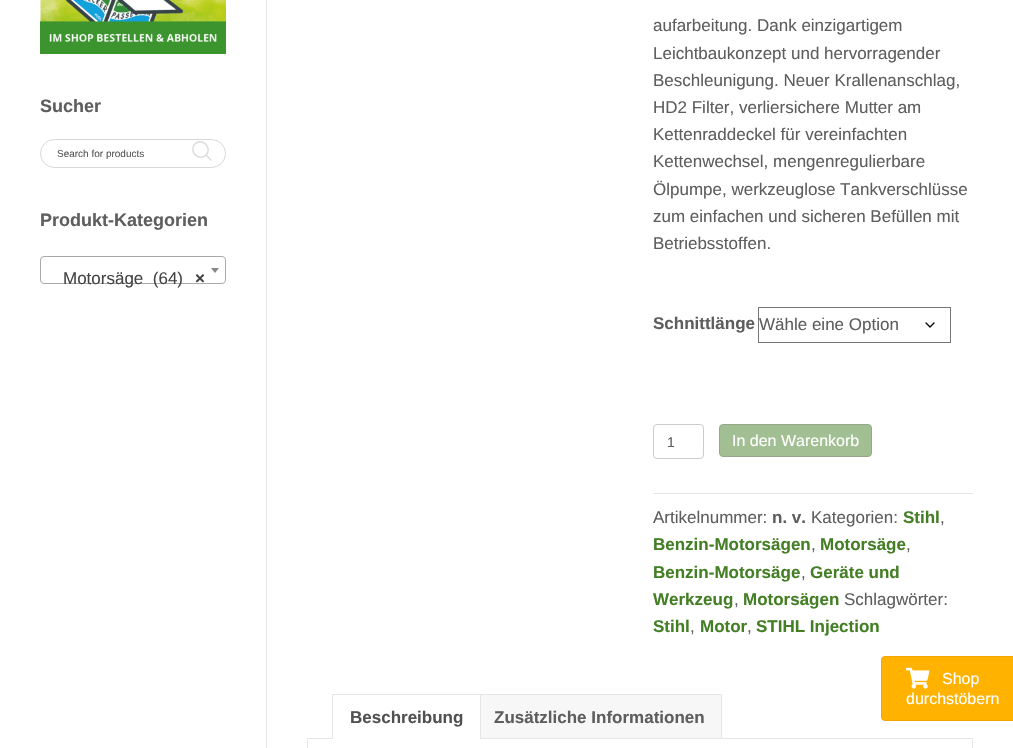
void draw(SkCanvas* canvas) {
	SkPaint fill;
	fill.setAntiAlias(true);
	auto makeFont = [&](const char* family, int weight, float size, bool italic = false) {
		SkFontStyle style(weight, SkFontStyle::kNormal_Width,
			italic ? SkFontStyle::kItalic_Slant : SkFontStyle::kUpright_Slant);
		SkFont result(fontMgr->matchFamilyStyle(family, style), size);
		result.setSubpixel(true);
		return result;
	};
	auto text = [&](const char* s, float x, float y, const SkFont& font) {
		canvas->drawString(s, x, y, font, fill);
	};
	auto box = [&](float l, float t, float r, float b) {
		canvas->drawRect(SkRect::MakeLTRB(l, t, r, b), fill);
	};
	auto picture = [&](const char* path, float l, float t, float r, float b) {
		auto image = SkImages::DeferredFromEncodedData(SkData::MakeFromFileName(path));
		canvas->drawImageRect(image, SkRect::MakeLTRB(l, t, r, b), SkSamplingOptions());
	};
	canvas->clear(0xFFFFFFFF);
	picture("image0.png", 40, 0, 226, 54);
	fill.setStyle(SkPaint::kStroke_Style);
	fill.setStrokeWidth(1);
	fill.setColor(0xFFD8D8D8);
	canvas->drawRoundRect(SkRect::MakeLTRB(40.5f, 139.5f, 225.5f, 167.5f), 14, 14, fill);
	fill.setStrokeWidth(1.5f);
	fill.setStrokeCap(SkPaint::kRound_Cap);
	fill.setStrokeJoin(SkPaint::kRound_Join);
	fill.setColor(0xFFDCDCDC);
	canvas->drawPath(SkPathBuilder().moveTo(211, 160).lineTo(206, 155).moveTo(206, 155).cubicTo(213, 148, 202, 137, 195, 144).cubicTo(188, 151, 199, 162, 206, 155).close().detach(), fill);
	fill.setStrokeWidth(1);
	fill.setStrokeCap(SkPaint::kButt_Cap);
	fill.setStrokeJoin(SkPaint::kMiter_Join);
	fill.setColor(0xFFAAAAAA);
	canvas->drawRoundRect(SkRect::MakeLTRB(40.5f, 256.5f, 225.5f, 283.5f), 3.5f, 3.5f, fill);
	fill.setStyle(SkPaint::kFill_Style);
	fill.setColor(0xFF888888);
	canvas->drawPath(SkPathBuilder().moveTo(211, 268).lineTo(219, 268).lineTo(215, 273).close().detach(), fill);
	fill.setColor(0xFFE6E6E6);
	box(266, 0, 267, 748);
	fill.setStyle(SkPaint::kStroke_Style);
	fill.setStrokeWidth(1.3f);
	fill.setStrokeCap(SkPaint::kRound_Cap);
	fill.setStrokeJoin(SkPaint::kRound_Join);
	fill.setColor(0xFF000000);
	canvas->drawPath(SkPathBuilder().moveTo(926, 323).lineTo(930, 327).lineTo(934, 323).detach(), fill);
	fill.setStrokeWidth(1);
	fill.setStrokeCap(SkPaint::kButt_Cap);
	fill.setStrokeJoin(SkPaint::kMiter_Join);
	fill.setColor(0xFF767676);
	canvas->drawRect(SkRect::MakeLTRB(758.5f, 307.5f, 950.5f, 342.5f), fill);
	fill.setColor(0xFFCCCCCC);
	canvas->drawRoundRect(SkRect::MakeLTRB(653.5f, 424.5f, 703.5f, 458.5f), 3.5f, 3.5f, fill);
	fill.setStyle(SkPaint::kFill_Style);
	fill.setColor(0xFFA2BF93);
	canvas->drawRoundRect(SkRect::MakeLTRB(719.5f, 424.5f, 871.5f, 456.5f), 3.5f, 3.5f, fill);
	fill.setStyle(SkPaint::kStroke_Style);
	fill.setColor(0xFF95A88C);
	canvas->drawRoundRect(SkRect::MakeLTRB(719.5f, 424.5f, 871.5f, 456.5f), 3.5f, 3.5f, fill);
	fill.setStyle(SkPaint::kFill_Style);
	fill.setColor(0xFFE6E6E6);
	box(653, 493, 973, 494);
	box(332, 694, 722, 695);
	box(721, 694, 722, 739);
	box(307, 738, 973, 739);
	fill.setColor(0xFFFFFFFF);
	box(333, 738, 480, 739);
	fill.setColor(0xFFE6E6E6);
	box(480, 694, 481, 739);
	box(332, 694, 333, 739);
	fill.setColor(0xFFF7F7F7);
	box(481, 695, 721, 738);
	fill.setColor(0xFFE6E6E6);
	box(972, 739, 973, 748);
	box(307, 739, 308, 748);
	fill.setColor(0xFFFFB200);
	canvas->drawRoundRect(SkRect::MakeLTRB(881.5f, 656.5f, 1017.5f, 720.5f), 3.5f, 3.5f, fill);
	fill.setStyle(SkPaint::kStroke_Style);
	fill.setColor(0xFFF3A600);
	canvas->drawRoundRect(SkRect::MakeLTRB(881.5f, 656.5f, 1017.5f, 720.5f), 3.5f, 3.5f, fill);
	picture("image1.png", 906, 667, 930, 689);
	auto font1 = makeFont("Liberation Sans", 700, 18);
	fill.setStyle(SkPaint::kFill_Style);
	fill.setColor(0xFF5E5E5E);
	text("Sucher", 40, 112, font1);
	auto font2 = makeFont("Liberation Sans", 400, 10);
	fill.setColor(0xFF575757);
	text("Search for products", 57, 157, font2);
	fill.setColor(0xFF5E5E5E);
	text("Produkt-Kategorien", 40, 226, font1);
	auto font3 = makeFont("Liberation Sans", 400, 17);
	fill.setColor(0xFF444444);
	text("Motorsäge  (64)", 63, 284, font3);
	auto font4 = makeFont("Liberation Sans", 700, 17);
	text("×", 195, 284, font4);
	fill.setColor(0xFF5E5E5E);
	text("aufarbeitung. Dank einzigartigem", 653, 31, font3);
	text("Leichtbaukonzept und hervorragender", 653, 59, font3);
	text("Beschleunigung. Neuer Krallenanschlag,", 653, 86, font3);
	text("HD2 Filter, verliersichere Mutter am", 653, 113, font3);
	text("Kettenraddeckel für vereinfachten", 653, 140, font3);
	text("Kettenwechsel, mengenregulierbare", 653, 167, font3);
	text("Ölpumpe, werkzeuglose Tankverschlüsse", 653, 195, font3);
	text("zum einfachen und sicheren Befüllen mit", 653, 222, font3);
	text("Betriebsstoffen.", 653, 249, font3);
	text("Schnittlänge", 653, 329, font4);
	text("Wähle eine Option", 759, 330, font3);
	auto font5 = makeFont("Liberation Sans", 400, 14);
	text("1", 667, 447, font5);
	auto font6 = makeFont("Liberation Sans", 400, 16);
	fill.setColor(0xFFFFFFFF);
	text("In den Warenkorb", 732, 446, font6);
	fill.setColor(0xFF5E5E5E);
	text("Artikelnummer:", 653, 523, font3);
	text("n. v.", 772, 523, font4);
	text("Kategorien:", 811, 523, font3);
	fill.setColor(0xFF447F26);
	text("Stihl", 903, 523, font4);
	fill.setColor(0xFF5E5E5E);
	text(",", 940, 523, font3);
	fill.setColor(0xFF447F26);
	text("Benzin-Motorsägen", 653, 550, font4);
	fill.setColor(0xFF5E5E5E);
	text(",", 811, 550, font3);
	fill.setColor(0xFF447F26);
	text("Motorsäge", 820, 550, font4);
	fill.setColor(0xFF5E5E5E);
	text(",", 906, 550, font3);
	fill.setColor(0xFF447F26);
	text("Benzin-Motorsäge", 653, 578, font4);
	fill.setColor(0xFF5E5E5E);
	text(",", 801, 578, font3);
	fill.setColor(0xFF447F26);
	text("Geräte und", 810, 578, font4);
	text("Werkzeug", 653, 605, font4);
	fill.setColor(0xFF5E5E5E);
	text(",", 734, 605, font3);
	fill.setColor(0xFF447F26);
	text("Motorsägen", 743, 605, font4);
	fill.setColor(0xFF5E5E5E);
	text("Schlagwörter:", 844, 605, font3);
	fill.setColor(0xFF447F26);
	text("Stihl", 653, 632, font4);
	fill.setColor(0xFF5E5E5E);
	text(",", 690, 632, font3);
	fill.setColor(0xFF447F26);
	text("Motor", 700, 632, font4);
	fill.setColor(0xFF5E5E5E);
	text(",", 747, 632, font3);
	fill.setColor(0xFF447F26);
	text("STIHL Injection", 756, 632, font4);
	fill.setColor(0xFF515151);
	text("Beschreibung", 350, 723, font4);
	fill.setColor(0xFF5E5E5E);
	text("Zusätzliche Informationen", 494, 723, font4);
	fill.setColor(0xFFFFFFFF);
	text("Shop", 942, 684, font6);
	text("durchstöbern", 906, 704, font6);
}
